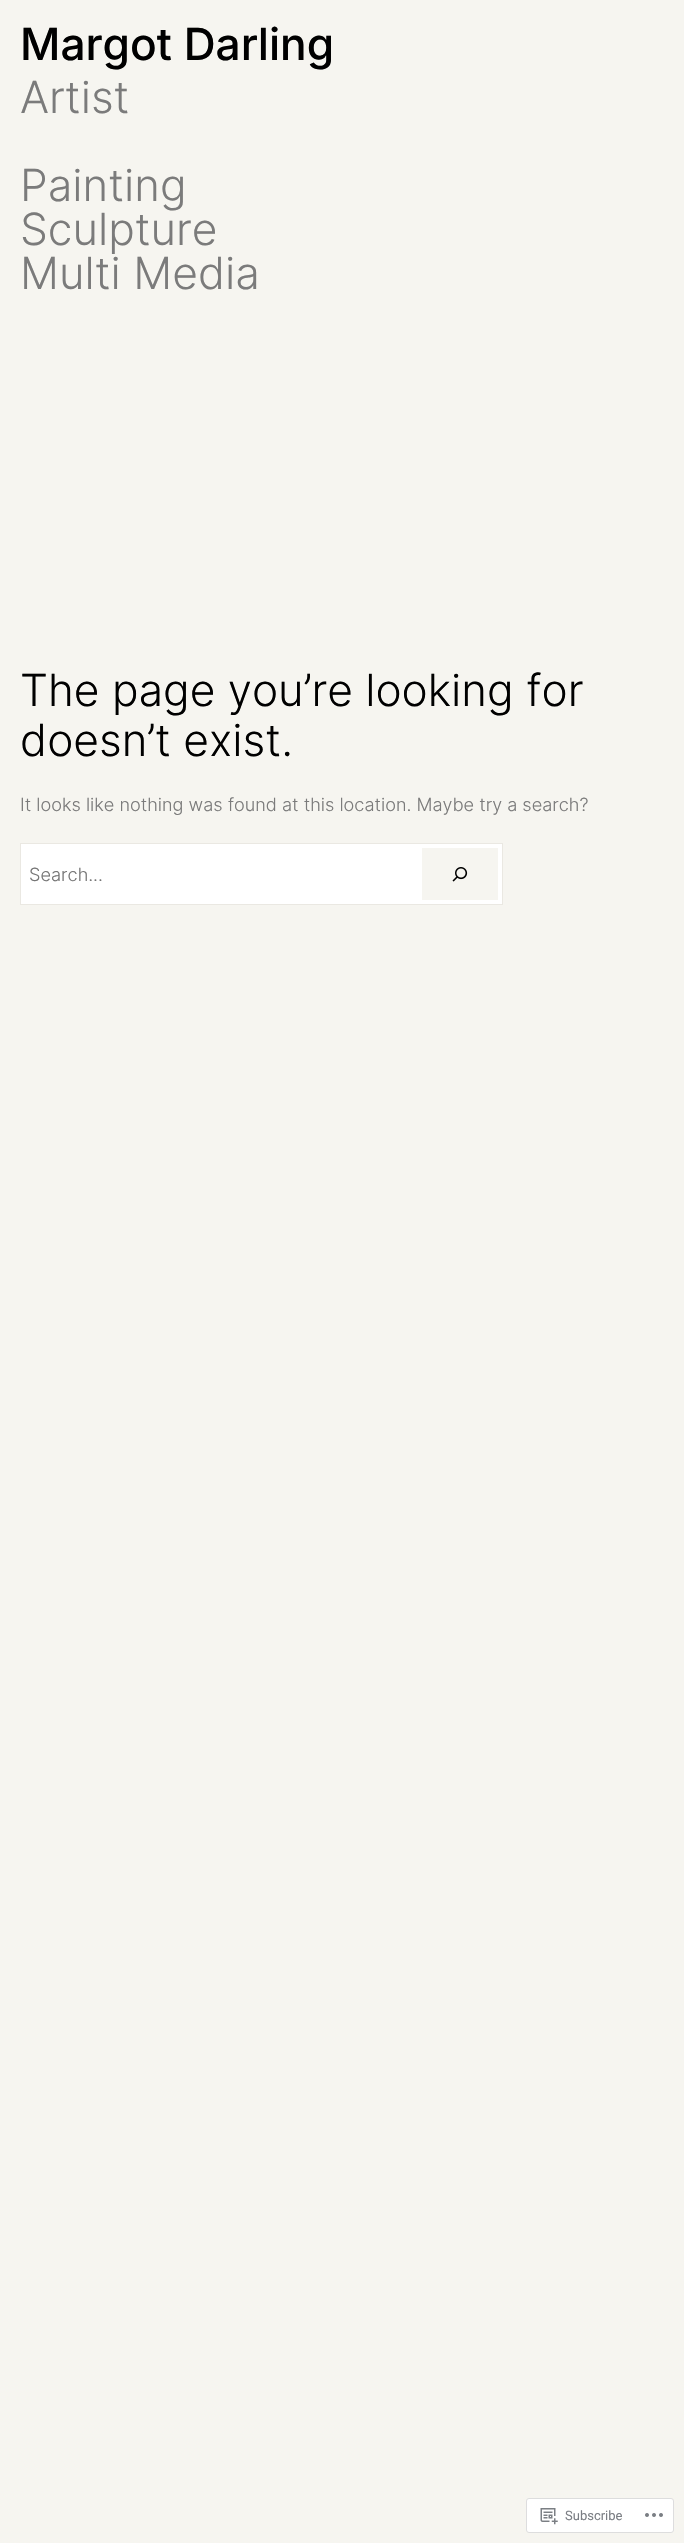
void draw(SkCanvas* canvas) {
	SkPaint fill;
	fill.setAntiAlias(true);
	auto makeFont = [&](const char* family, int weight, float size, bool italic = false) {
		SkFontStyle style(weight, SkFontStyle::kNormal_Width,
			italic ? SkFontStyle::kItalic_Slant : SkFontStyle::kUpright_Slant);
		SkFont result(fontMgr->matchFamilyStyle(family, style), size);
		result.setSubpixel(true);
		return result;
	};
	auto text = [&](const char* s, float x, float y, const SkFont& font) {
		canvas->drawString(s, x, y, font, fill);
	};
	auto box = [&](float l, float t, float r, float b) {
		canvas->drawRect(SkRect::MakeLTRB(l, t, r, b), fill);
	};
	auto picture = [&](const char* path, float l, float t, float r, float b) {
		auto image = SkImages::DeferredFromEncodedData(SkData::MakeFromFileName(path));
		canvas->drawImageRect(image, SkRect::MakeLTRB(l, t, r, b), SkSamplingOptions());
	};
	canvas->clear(0xFFF6F5F0);
	fill.setColor(0xFFFFFFFF);
	canvas->drawRect(SkRect::MakeLTRB(20.5f, 843.5f, 502.5f, 904.5f), fill);
	fill.setStyle(SkPaint::kStroke_Style);
	fill.setStrokeWidth(1);
	fill.setColor(0xFFEAE8E2);
	canvas->drawRect(SkRect::MakeLTRB(20.5f, 843.5f, 502.5f, 904.5f), fill);
	fill.setStyle(SkPaint::kFill_Style);
	fill.setColor(0xFFF6F5F0);
	box(422, 848, 498, 900);
	picture("image0.png", 452, 867, 468, 882);
	fill.setColor(0xFFFFFFFF);
	canvas->drawRoundRect(SkRect::MakeLTRB(526.5f, 2498.5f, 673.5f, 2532.5f), 2.5f, 2.5f, fill);
	fill.setStyle(SkPaint::kStroke_Style);
	fill.setColor(0xFFDDDDDE);
	canvas->drawRoundRect(SkRect::MakeLTRB(526.5f, 2498.5f, 673.5f, 2532.5f), 2.5f, 2.5f, fill);
	picture("image1.png", 540, 2508, 558, 2525);
	picture("image2.png", 645, 2513, 663, 2517);
	auto font1 = makeFont("Inter", 500, 44.25f);
	fill.setStyle(SkPaint::kFill_Style);
	fill.setColor(0xFF000000);
	text("Margot Darling", 20, 60, font1);
	auto font2 = makeFont("Inter", 300, 44.25f);
	fill.setColor(0xFF7B7B7B);
	text("Artist", 20, 113, font2);
	text("Painting", 20, 201, font2);
	text("Sculpture", 20, 245, font2);
	text("Multi Media", 20, 289, font2);
	fill.setColor(0xFF000000);
	text("The page you’re looking for", 20, 706, font2);
	text("doesn’t exist.", 20, 756, font2);
	auto font3 = makeFont("Inter", 300, 18.15f);
	fill.setColor(0xFF7B7B7B);
	text("It looks like nothing was found at this location. Maybe try a search?", 20, 811, font3);
	fill.setColor(0xFF757575);
	text("Search...", 29, 881, font3);
	auto font4 = makeFont("Roboto", 400, 13);
	fill.setColor(0xFF7B7E84);
	text("Subscribe", 565, 2520, font4);
}
